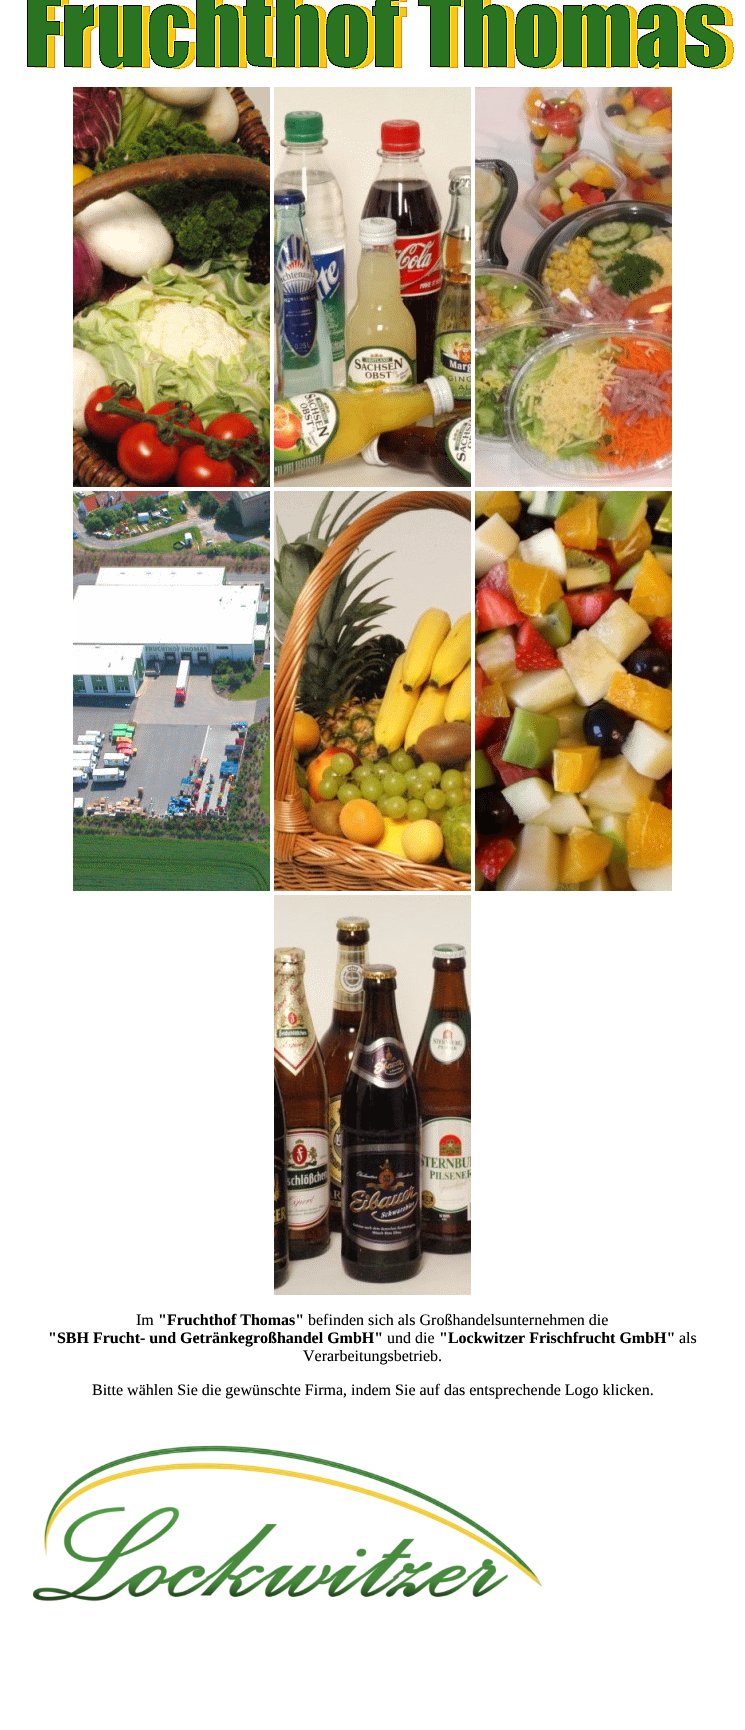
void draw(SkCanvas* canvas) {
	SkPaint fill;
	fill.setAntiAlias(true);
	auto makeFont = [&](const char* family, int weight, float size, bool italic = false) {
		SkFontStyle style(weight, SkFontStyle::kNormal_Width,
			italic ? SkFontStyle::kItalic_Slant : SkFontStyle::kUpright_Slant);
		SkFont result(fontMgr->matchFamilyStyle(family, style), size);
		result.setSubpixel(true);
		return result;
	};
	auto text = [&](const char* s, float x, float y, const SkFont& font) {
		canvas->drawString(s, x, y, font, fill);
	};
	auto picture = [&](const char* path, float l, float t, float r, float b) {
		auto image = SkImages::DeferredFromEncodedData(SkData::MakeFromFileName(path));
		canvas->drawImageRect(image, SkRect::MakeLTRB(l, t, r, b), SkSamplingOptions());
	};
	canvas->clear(0xFFFFFFFF);
	picture("image0.png", 27, 0, 734, 69);
	picture("image1.png", 73, 87, 270, 487);
	picture("image2.png", 274, 87, 471, 487);
	picture("image3.png", 475, 87, 672, 487);
	picture("image4.png", 73, 491, 270, 891);
	picture("image5.png", 274, 491, 471, 891);
	picture("image6.png", 475, 491, 672, 891);
	picture("image7.png", 274, 895, 471, 1295);
	picture("image8.png", 32, 1445, 543, 1602);
	auto font1 = makeFont("Liberation Serif", 400, 16);
	fill.setColor(0xFF000000);
	text("Im", 136, 1325, font1);
	auto font2 = makeFont("Liberation Serif", 700, 16);
	text("\"Fruchthof Thomas\"", 158, 1325, font2);
	text("befinden sich als Großhandelsunternehmen die", 308, 1325, font1);
	text("\"SBH Frucht- und Getränkegroßhandel GmbH\"", 48, 1343, font2);
	text("und die", 387, 1343, font1);
	text("\"Lockwitzer Frischfrucht GmbH\"", 439, 1343, font2);
	text("als", 679, 1343, font1);
	text("Verarbeitungsbetrieb.", 303, 1361, font1);
	text("Bitte wählen Sie die gewünschte Firma, indem Sie auf das entsprechende Logo klicken.", 92, 1395, font1);
}
